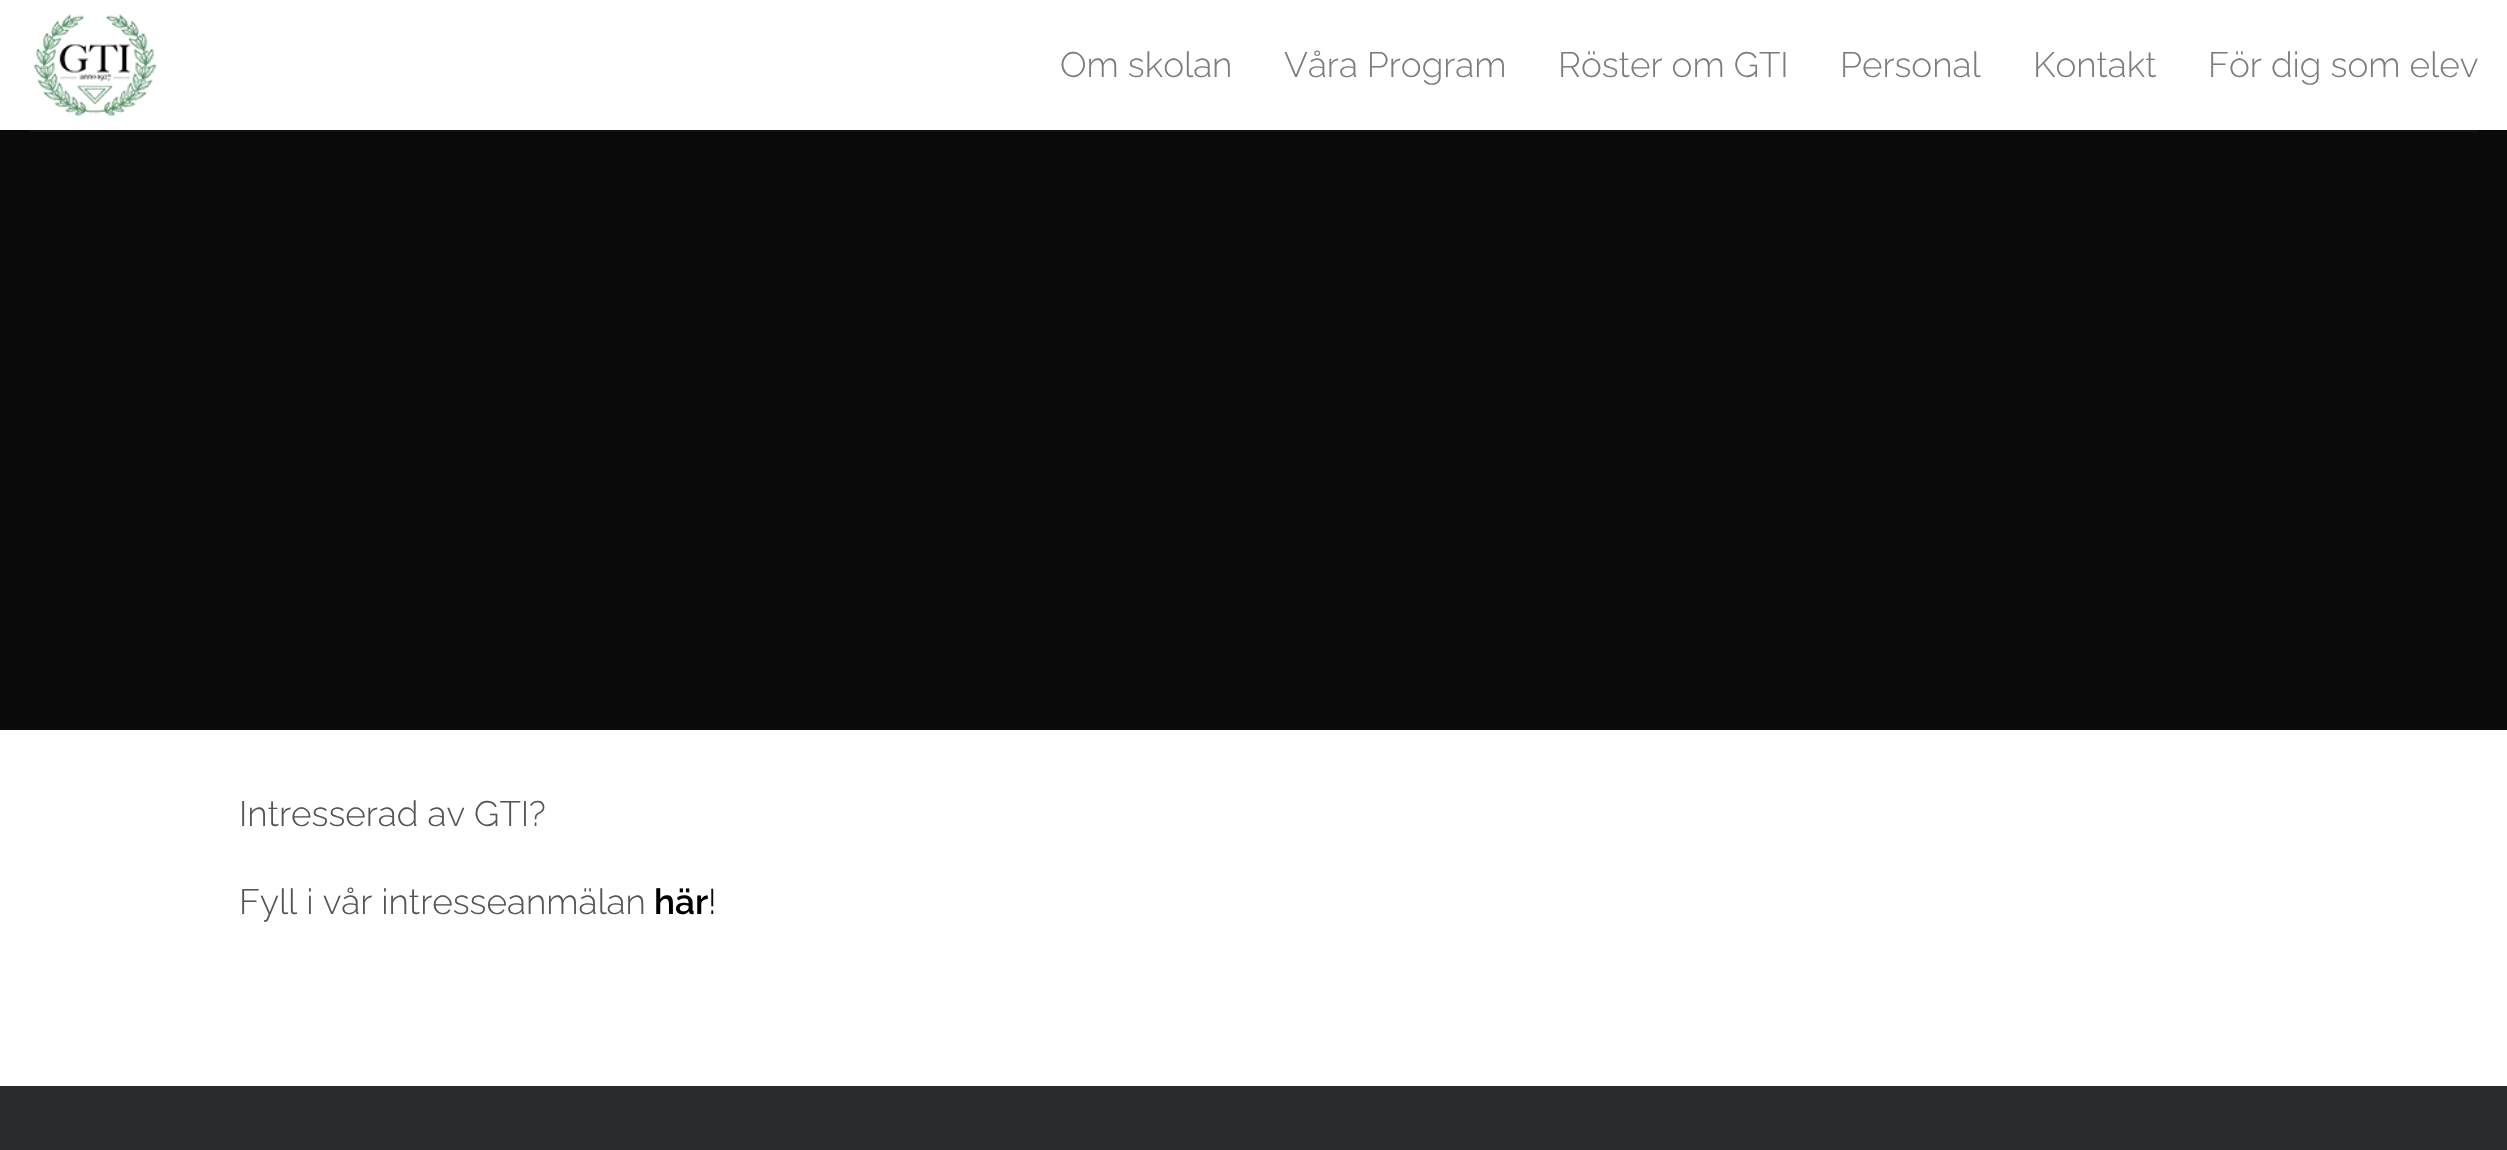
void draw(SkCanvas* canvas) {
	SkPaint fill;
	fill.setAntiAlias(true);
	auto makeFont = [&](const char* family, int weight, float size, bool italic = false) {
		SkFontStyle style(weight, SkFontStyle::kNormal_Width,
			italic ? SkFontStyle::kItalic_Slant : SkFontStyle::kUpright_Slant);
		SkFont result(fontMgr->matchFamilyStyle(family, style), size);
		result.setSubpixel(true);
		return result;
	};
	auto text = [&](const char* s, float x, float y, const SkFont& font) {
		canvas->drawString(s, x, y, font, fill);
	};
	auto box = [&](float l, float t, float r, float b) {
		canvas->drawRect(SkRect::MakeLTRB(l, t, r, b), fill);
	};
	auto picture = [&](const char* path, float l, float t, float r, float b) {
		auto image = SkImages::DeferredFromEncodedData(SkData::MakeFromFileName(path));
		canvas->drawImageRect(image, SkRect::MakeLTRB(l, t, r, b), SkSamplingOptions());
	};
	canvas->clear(0xFFFFFFFF);
	picture("image0.png", 33, 14, 157, 116);
	fill.setColor(0xFF0A0A0A);
	box(0, 130, 2507, 730);
	fill.setColor(0xFF121212);
	box(30, 130, 2478, 132);
	fill.setColor(0xFF282C2F);
	box(0, 1086, 2507, 1150);
	auto font1 = makeFont("Raleway", 300, 35.25f);
	fill.setColor(0xFF7D7D7D);
	text("Om skolan", 1060, 77, font1);
	text("Våra Program", 1284, 77, font1);
	text("Röster om GTI", 1558, 77, font1);
	text("Personal", 1840, 77, font1);
	text("Kontakt", 2033, 77, font1);
	text("För dig som elev", 2208, 77, font1);
	fill.setColor(0xFF555555);
	text("Intresserad av GTI?", 239, 826, font1);
	text("Fyll i vår intresseanmälan", 239, 914, font1);
	auto font2 = makeFont("Raleway", 600, 35.25f);
	fill.setColor(0xFF000000);
	text("här", 654, 914, font2);
	fill.setColor(0xFF0A0A0A);
	text("!", 708, 914, font1);
}
